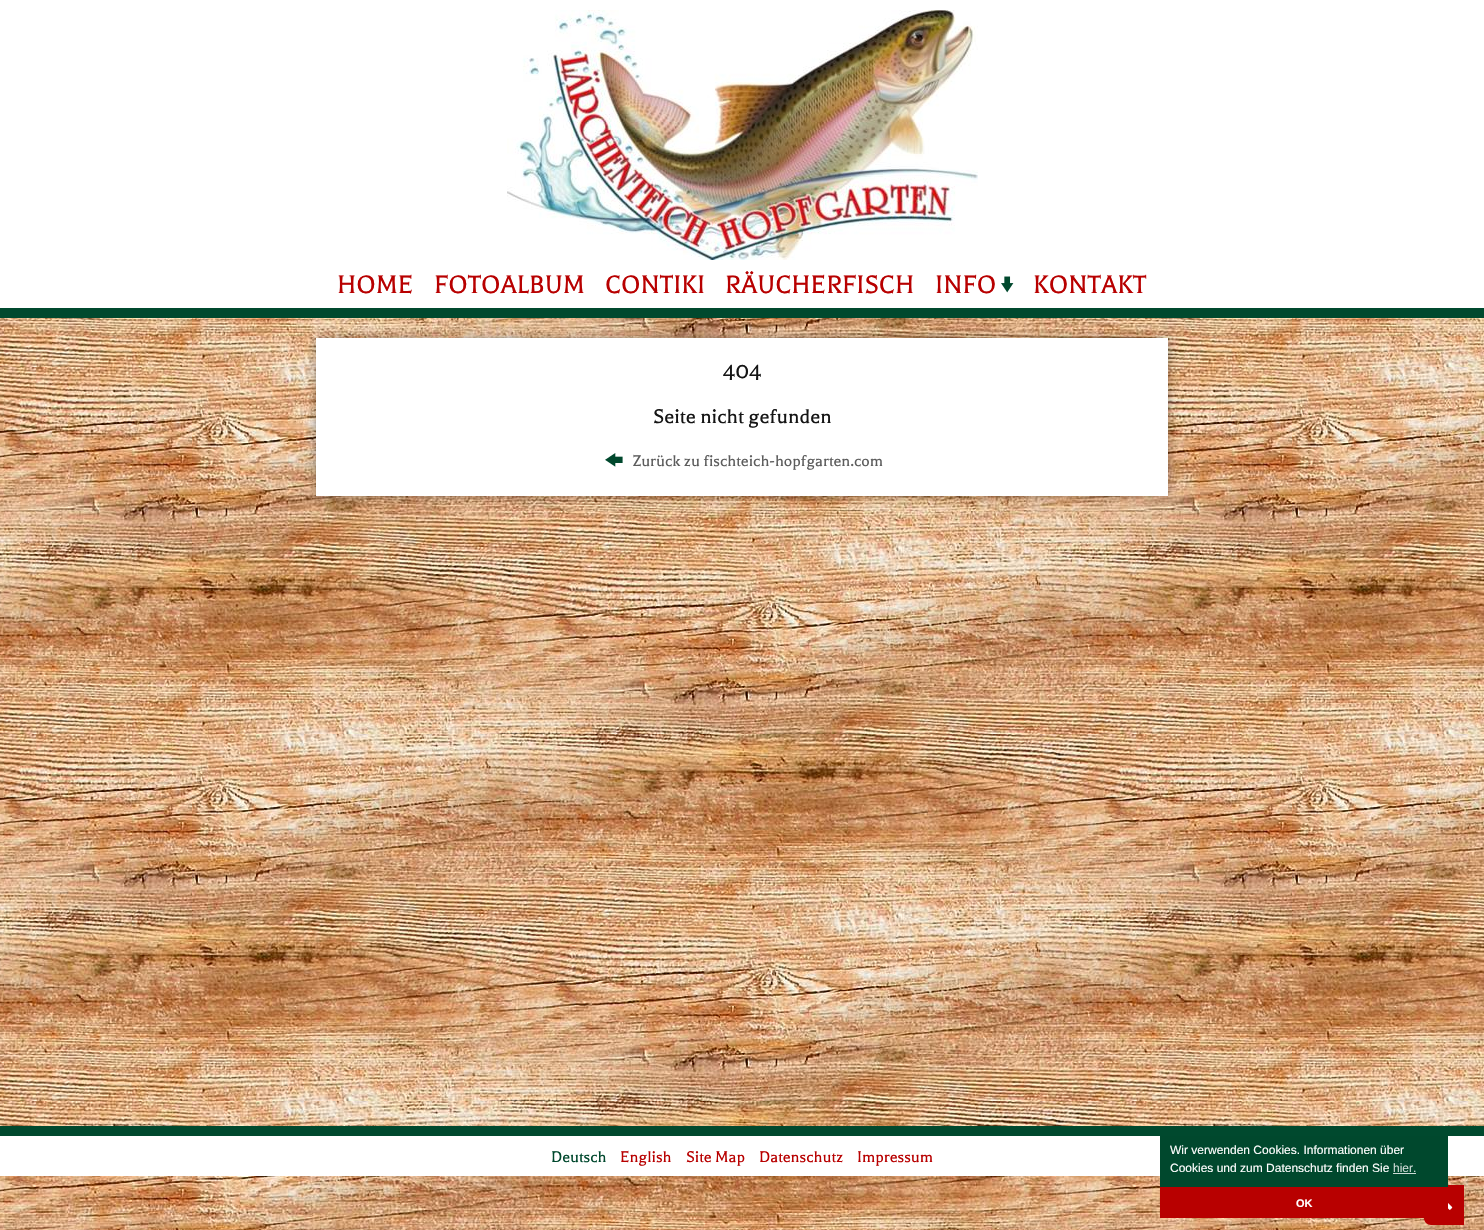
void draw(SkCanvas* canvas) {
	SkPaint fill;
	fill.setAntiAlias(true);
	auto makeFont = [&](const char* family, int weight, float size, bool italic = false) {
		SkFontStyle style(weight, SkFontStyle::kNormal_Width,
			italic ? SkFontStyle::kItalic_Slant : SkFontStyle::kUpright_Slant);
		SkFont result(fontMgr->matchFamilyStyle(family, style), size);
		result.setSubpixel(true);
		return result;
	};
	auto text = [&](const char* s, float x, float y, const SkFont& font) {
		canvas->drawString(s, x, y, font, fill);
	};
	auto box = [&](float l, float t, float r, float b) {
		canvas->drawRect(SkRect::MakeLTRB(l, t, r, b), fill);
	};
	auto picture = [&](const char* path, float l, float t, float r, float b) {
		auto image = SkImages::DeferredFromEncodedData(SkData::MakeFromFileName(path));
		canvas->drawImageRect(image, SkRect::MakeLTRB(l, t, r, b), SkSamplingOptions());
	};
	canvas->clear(0xFFFFFFFF);
	picture("image0.png", 0, 318, 1484, 1230);
	fill.setColor(0xFF00492E);
	box(0, 308, 1484, 318);
	picture("image1.png", 507, 10, 978, 260);
	picture("image2.png", 1001, 276, 1014, 293);
	fill.setColor(0x66000000);
	fill.setMaskFilter(SkMaskFilter::MakeBlur(kNormal_SkBlurStyle, 5));
	canvas->drawRect(SkRect::MakeLTRB(316, 338, 1168, 496), fill);
	fill.setMaskFilter(nullptr);
	fill.setColor(0xFFFFFFFF);
	box(316, 338, 1168, 496);
	picture("image3.png", 605, 453, 623, 467);
	box(0, 1136, 1484, 1176);
	fill.setColor(0xFF00492E);
	box(0, 1126, 1484, 1136);
	fill.setColor(0xFFB80000);
	canvas->drawPath(SkPathBuilder().moveTo(1424, 1185).lineTo(1464, 1185).lineTo(1464, 1225).lineTo(1431, 1225).cubicTo(1427, 1225, 1424, 1222, 1424, 1218).close().detach(), fill);
	fill.setColor(0xFF00482D);
	box(1160, 1136, 1448, 1187);
	fill.setColor(0xFFCCDAD5);
	box(1393, 1173, 1416, 1174);
	fill.setColor(0xFFB80000);
	box(1160, 1187, 1424, 1218);
	picture("image4.png", 1448, 1203, 1453, 1210);
	auto font1 = makeFont("Balthazar", 400, 28.75f);
	text("HOME", 337, 293, font1);
	text("FOTOALBUM", 434, 293, font1);
	text("CONTIKI", 605, 293, font1);
	text("RÄUCHERFISCH", 725, 293, font1);
	text("INFO", 935, 293, font1);
	text("KONTAKT", 1033, 293, font1);
	auto font2 = makeFont("Balthazar", 400, 26);
	fill.setColor(0xFF151515);
	text("404", 723, 378, font2);
	auto font3 = makeFont("Balthazar", 400, 22.5f);
	text("Seite nicht gefunden", 653, 423, font3);
	auto font4 = makeFont("Balthazar", 400, 17.6f);
	fill.setColor(0xFF5D5D5D);
	text("Zurück zu fischteich-hopfgarten.com", 633, 466, font4);
	fill.setColor(0xFF00482D);
	text("Deutsch", 551, 1162, font4);
	fill.setColor(0xFFB80000);
	text("English", 620, 1162, font4);
	text("Site Map", 686, 1162, font4);
	text("Datenschutz", 759, 1162, font4);
	text("Impressum", 857, 1162, font4);
	auto font5 = makeFont("Liberation Sans", 400, 12);
	fill.setColor(0xFFFFFFFF);
	text("Wir verwenden Cookies. Informationen über", 1170, 1154, font5);
	text("Cookies und zum Datenschutz finden Sie", 1170, 1172, font5);
	fill.setColor(0xFFCCDAD5);
	text("hier.", 1393, 1172, font5);
	auto font6 = makeFont("Liberation Sans", 700, 11);
	fill.setColor(0xFFFFFFFF);
	text("OK", 1296, 1207, font6);
}
